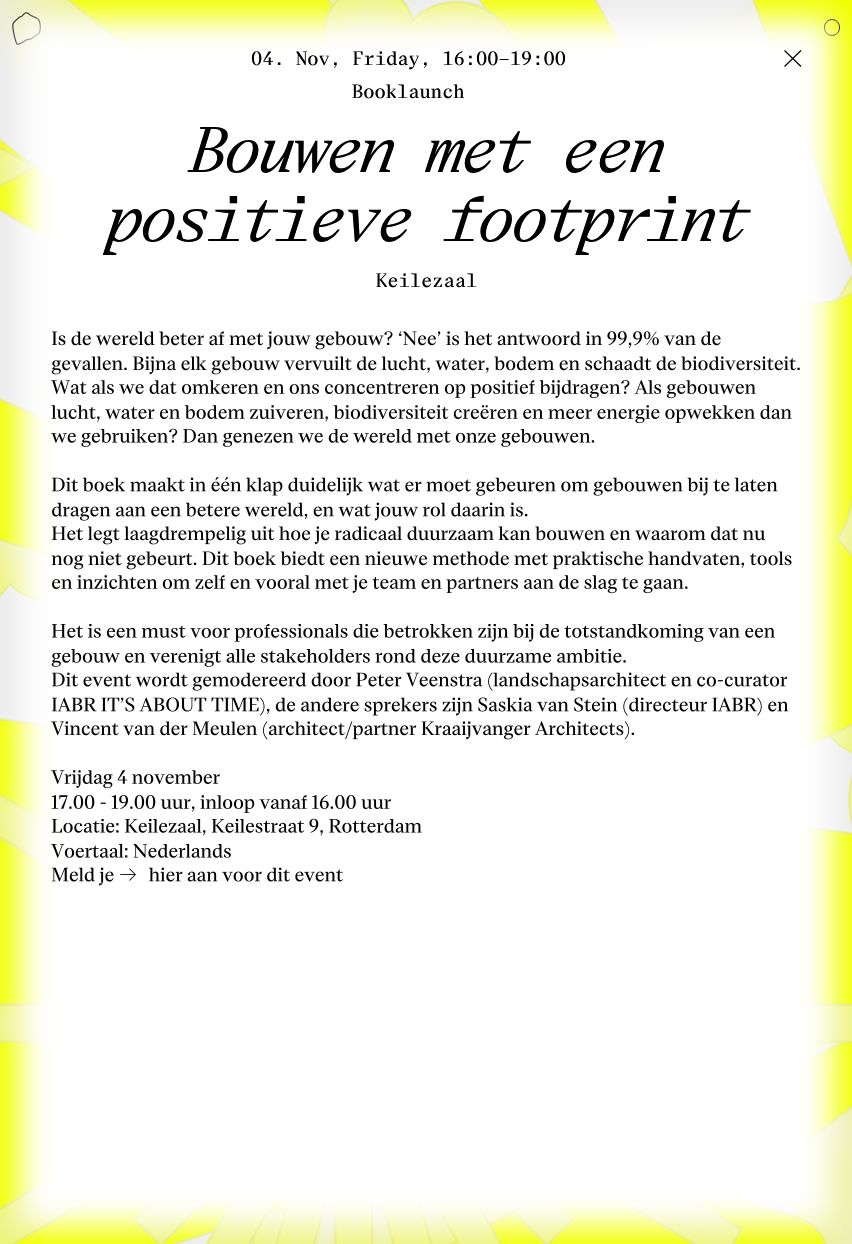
void draw(SkCanvas* canvas) {
	SkPaint fill;
	fill.setAntiAlias(true);
	auto makeFont = [&](const char* family, int weight, float size, bool italic = false) {
		SkFontStyle style(weight, SkFontStyle::kNormal_Width,
			italic ? SkFontStyle::kItalic_Slant : SkFontStyle::kUpright_Slant);
		SkFont result(fontMgr->matchFamilyStyle(family, style), size);
		result.setSubpixel(true);
		return result;
	};
	auto text = [&](const char* s, float x, float y, const SkFont& font) {
		canvas->drawString(s, x, y, font, fill);
	};
	auto spacedText = [&](const char* s, float x, float y, const SkFont& font, const SkPaint& ink, float letter, float word) {
		std::vector<SkGlyphID> glyphs(font.countText(s, strlen(s), SkTextEncoding::kUTF8));
		std::vector<float> xs(glyphs.size());
		font.textToGlyphs(s, strlen(s), SkTextEncoding::kUTF8, glyphs);
		font.getXPos(glyphs, xs, x);
		float extra = 0;
		for (size_t i = 0; i < glyphs.size(); i++) {
			xs[i] += extra;
			extra += letter + word * (glyphs[i] == font.unicharToGlyph(' '));
		}
		canvas->drawTextBlob(SkTextBlob::MakeFromPosHGlyphs(glyphs, xs, y, font), 0, 0, ink);
	};
	auto picture = [&](const char* path, float l, float t, float r, float b) {
		auto image = SkImages::DeferredFromEncodedData(SkData::MakeFromFileName(path));
		canvas->drawImageRect(image, SkRect::MakeLTRB(l, t, r, b), SkSamplingOptions());
	};
	canvas->clear(0xFFEBEBEB);
	picture("image0.png", 0, 0, 852, 1244);
	picture("image1.png", 0, 0, 852, 1244);
	picture("image2.png", 0, 0, 852, 1244);
	picture("image3.png", 12, 12, 41, 45);
	fill.setStyle(SkPaint::kStroke_Style);
	fill.setStrokeWidth(1);
	fill.setColor(0xFF000000);
	canvas->drawRoundRect(SkRect::MakeLTRB(824.5f, 19.5f, 839.5f, 35.5f), 7.5f, 7.5f, fill);
	fill.setStyle(SkPaint::kFill_Style);
	fill.setColor(0xFFFFFFFF);
	fill.setMaskFilter(SkMaskFilter::MakeBlur(kNormal_SkBlurStyle, 15));
	canvas->drawRect(SkRect::MakeLTRB(20, 19, 833, 1226), fill);
	fill.setMaskFilter(nullptr);
	picture("image4.png", 52, 331, 721, 350);
	picture("image5.png", 51, 356, 800, 375);
	picture("image6.png", 51, 380, 756, 399);
	picture("image7.png", 51, 405, 792, 424);
	picture("image8.png", 51, 428, 595, 447);
	picture("image9.png", 52, 477, 778, 496);
	picture("image10.png", 52, 502, 528, 521);
	picture("image11.png", 52, 526, 766, 545);
	picture("image12.png", 51, 551, 792, 570);
	picture("image13.png", 52, 575, 688, 594);
	picture("image14.png", 52, 623, 775, 642);
	picture("image15.png", 51, 649, 626, 667);
	picture("image16.png", 52, 672, 788, 691);
	picture("image17.png", 52, 697, 789, 716);
	picture("image18.png", 51, 721, 634, 740);
	picture("image19.png", 51, 770, 220, 789);
	picture("image20.png", 51, 795, 391, 813);
	picture("image21.png", 52, 818, 422, 836);
	picture("image22.png", 51, 844, 231, 858);
	picture("image23.png", 52, 867, 114, 886);
	picture("image24.png", 120, 868, 136, 881);
	picture("image25.png", 149, 867, 183, 882);
	picture("image26.png", 187, 867, 343, 882);
	fill.setStyle(SkPaint::kStroke_Style);
	fill.setStrokeWidth(1.2f);
	fill.setColor(0xFF000000);
	canvas->drawPath(SkPathBuilder().moveTo(784.5f, 50.5f).lineTo(801, 66.5f).moveTo(784.5f, 66.5f).lineTo(801, 50.5f).detach(), fill);
	auto font1 = makeFont("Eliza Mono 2", 400, 18.75f);
	fill.setStyle(SkPaint::kFill_Style);
	text("04. Nov, Friday, 16:00–19:00", 251, 65, font1);
	text("Booklaunch", 352, 98, font1);
	auto font2 = makeFont("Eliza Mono", 400, 62.5f);
	spacedText("Bouwen met een", 190, 172, font2, fill, -3.75f, 0);
	spacedText("positieve footprint", 106, 241, font2, fill, -3.75f, 0);
	text("Keilezaal", 376, 287, font1);
}
